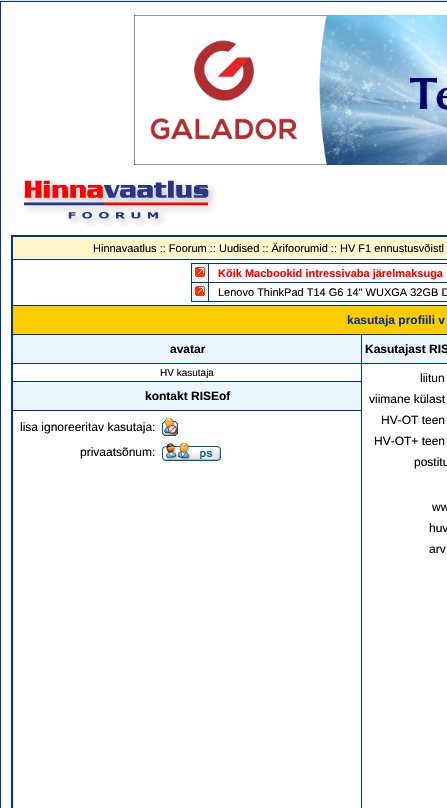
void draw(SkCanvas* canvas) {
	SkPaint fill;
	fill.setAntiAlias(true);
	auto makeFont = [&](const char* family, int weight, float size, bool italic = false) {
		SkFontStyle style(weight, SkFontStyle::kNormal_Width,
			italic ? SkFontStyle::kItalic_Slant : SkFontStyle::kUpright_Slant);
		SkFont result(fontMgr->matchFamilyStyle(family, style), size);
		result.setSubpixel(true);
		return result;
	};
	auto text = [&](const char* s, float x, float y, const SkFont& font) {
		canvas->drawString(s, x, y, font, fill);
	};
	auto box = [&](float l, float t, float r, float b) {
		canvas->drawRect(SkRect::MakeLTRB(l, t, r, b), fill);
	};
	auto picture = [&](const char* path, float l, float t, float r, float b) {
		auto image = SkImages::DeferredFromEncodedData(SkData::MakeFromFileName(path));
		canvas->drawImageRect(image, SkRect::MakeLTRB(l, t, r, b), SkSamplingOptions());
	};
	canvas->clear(0xFFE5E5E5);
	fill.setColor(0xFFFFFFFF);
	canvas->drawRect(SkRect::MakeLTRB(0.5f, 1.5f, 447.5f, 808.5f), fill);
	fill.setStyle(SkPaint::kStroke_Style);
	fill.setStrokeWidth(1);
	fill.setColor(0xFF003399);
	canvas->drawRect(SkRect::MakeLTRB(0.5f, 1.5f, 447.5f, 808.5f), fill);
	picture("image0.png", 134, 15, 447, 165);
	picture("image1.png", 23, 180, 217, 227);
	fill.setStyle(SkPaint::kFill_Style);
	box(11, 235, 447, 808);
	fill.setColor(0xFFFFF6CC);
	box(13, 237, 447, 259);
	fill.setColor(0xFFFFFFFF);
	box(13, 260, 447, 305);
	fill.setColor(0xFF003399);
	box(191, 301, 447, 302);
	box(191, 263, 192, 302);
	fill.setColor(0xFFECF6FF);
	box(192, 264, 208, 282);
	fill.setColor(0xFF003399);
	box(192, 263, 447, 264);
	box(208, 263, 209, 282);
	picture("image2.png", 195, 267, 205, 277);
	fill.setColor(0xFFECF6FF);
	box(192, 283, 208, 301);
	fill.setColor(0xFF003399);
	box(192, 282, 447, 283);
	box(208, 282, 209, 301);
	picture("image2.png", 195, 286, 205, 296);
	fill.setColor(0xFFFFCC00);
	box(13, 306, 447, 334);
	fill.setColor(0xFFECF6FF);
	box(13, 335, 361, 363);
	box(362, 335, 447, 363);
	fill.setColor(0xFFFFFFFF);
	box(13, 364, 361, 381);
	box(362, 364, 447, 808);
	fill.setColor(0xFFECF6FF);
	box(13, 382, 361, 410);
	fill.setColor(0xFFFFFFFF);
	box(13, 411, 361, 808);
	picture("image3.png", 162, 418, 178, 436);
	picture("image4.png", 162, 443, 221, 461);
	auto font1 = makeFont("Liberation Sans", 400, 11);
	fill.setColor(0xFF000000);
	text("Hinnavaatlus :: Foorum :: Uudised :: Ärifoorumid :: HV F1 ennustusvõistl", 93, 252, font1);
	auto font2 = makeFont("Liberation Sans", 700, 11);
	fill.setColor(0xFFFF0000);
	text("Kõik Macbookid intressivaba järelmaksuga", 218, 277, font2);
	fill.setColor(0xFF000000);
	text("Lenovo ThinkPad T14 G6 14\" WUXGA 32GB D", 218, 296, font1);
	auto font3 = makeFont("Liberation Sans", 700, 12);
	fill.setColor(0xFF003399);
	text("kasutaja profiili v", 347, 324, font3);
	fill.setColor(0xFF000000);
	text("avatar", 170, 353, font3);
	text("Kasutajast RIS", 365, 353, font3);
	auto font4 = makeFont("Liberation Sans", 400, 10);
	text("HV kasutaja", 160, 376, font4);
	auto font5 = makeFont("Liberation Sans", 400, 12);
	text("liitun", 420, 382, font5);
	text("viimane külast", 369, 403, font5);
	text("HV-OT teen", 381, 424, font5);
	text("HV-OT+ teen", 374, 445, font5);
	text("postitu", 414, 466, font5);
	text("ww", 432, 511, font5);
	text("huv", 429, 532, font5);
	text("arv", 429, 553, font5);
	text("kontakt RISEof", 145, 400, font3);
	text("lisa ignoreeritav kasutaja:", 20, 431, font5);
	text("privaatsõnum:", 80, 456, font5);
}
